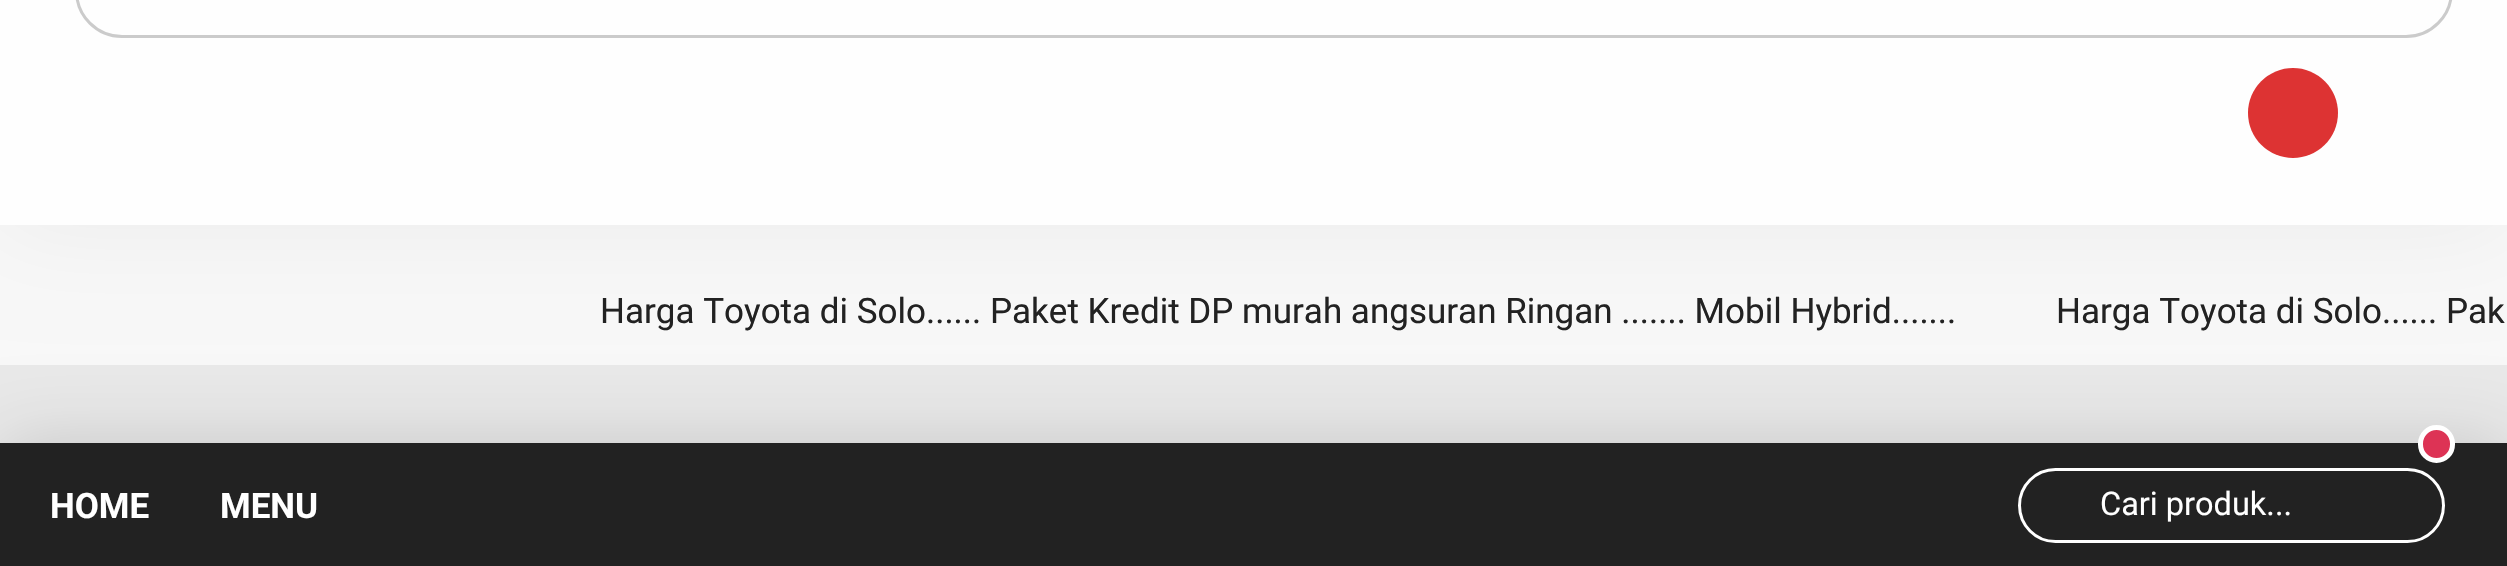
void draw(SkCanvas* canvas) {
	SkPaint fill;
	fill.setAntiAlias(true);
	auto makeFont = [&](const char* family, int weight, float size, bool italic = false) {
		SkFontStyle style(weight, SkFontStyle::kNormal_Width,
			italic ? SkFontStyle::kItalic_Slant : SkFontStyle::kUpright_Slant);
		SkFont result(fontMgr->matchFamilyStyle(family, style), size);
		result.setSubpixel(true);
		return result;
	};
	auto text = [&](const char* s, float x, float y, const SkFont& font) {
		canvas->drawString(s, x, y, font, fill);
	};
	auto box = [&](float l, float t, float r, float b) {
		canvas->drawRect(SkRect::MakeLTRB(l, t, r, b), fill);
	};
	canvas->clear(0xFFF8F8F8);
	fill.setColor(0xFFE9E9E9);
	box(0, 365, 2507, 443);
	fill.setColor(0x0D000000);
	fill.setMaskFilter(SkMaskFilter::MakeBlur(kNormal_SkBlurStyle, 50));
	canvas->drawRect(SkRect::MakeLTRB(0, 0, 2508, 225), fill);
	fill.setMaskFilter(nullptr);
	fill.setColor(0xFFFEFEFE);
	box(0, 0, 2507, 225);
	fill.setStyle(SkPaint::kStroke_Style);
	fill.setStrokeWidth(3);
	fill.setColor(0xFFCBCBCB);
	canvas->drawRoundRect(SkRect::MakeLTRB(76.5f, -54.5f, 2451.5f, 36.5f), 51, 51, fill);
	fill.setStyle(SkPaint::kFill_Style);
	fill.setColor(0xFFDD3333);
	canvas->drawCircle(2293, 113, 45, fill);
	fill.setColor(0x26000000);
	fill.setMaskFilter(SkMaskFilter::MakeBlur(kNormal_SkBlurStyle, 37.5f));
	canvas->drawRect(SkRect::MakeLTRB(0, 443, 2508, 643), fill);
	fill.setMaskFilter(nullptr);
	fill.setColor(0xFF222222);
	box(0, 443, 2507, 566);
	fill.setStyle(SkPaint::kStroke_Style);
	fill.setColor(0xFFFFFFFF);
	canvas->drawRoundRect(SkRect::MakeLTRB(2019.5f, 469.5f, 2443.5f, 541.5f), 36, 36, fill);
	fill.setStyle(SkPaint::kFill_Style);
	fill.setColor(0xFFDD3355);
	canvas->drawRoundRect(SkRect::MakeLTRB(2420.5f, 427.5f, 2452.5f, 460.5f), 16, 16, fill);
	fill.setStyle(SkPaint::kStroke_Style);
	fill.setStrokeWidth(5);
	fill.setColor(0xFFFFFFFF);
	canvas->drawRoundRect(SkRect::MakeLTRB(2420.5f, 427.5f, 2452.5f, 460.5f), 16, 16, fill);
	auto font1 = makeFont("Roboto", 400, 35);
	fill.setStyle(SkPaint::kFill_Style);
	fill.setColor(0xFF222222);
	text("Harga Toyota di Solo...... Paket Kredit DP murah angsuran Ringan ....... Mobil Hybrid.......", 600, 323, font1);
	text("Harga Toyota di Solo...... Pak", 2056, 323, font1);
	auto font2 = makeFont("Roboto", 700, 35);
	fill.setColor(0xFFFFFFFF);
	text("HOME", 50, 518, font2);
	text("MENU", 220, 518, font2);
	auto font3 = makeFont("Roboto", 400, 32.5f);
	text("Cari produk...", 2100, 515, font3);
}
